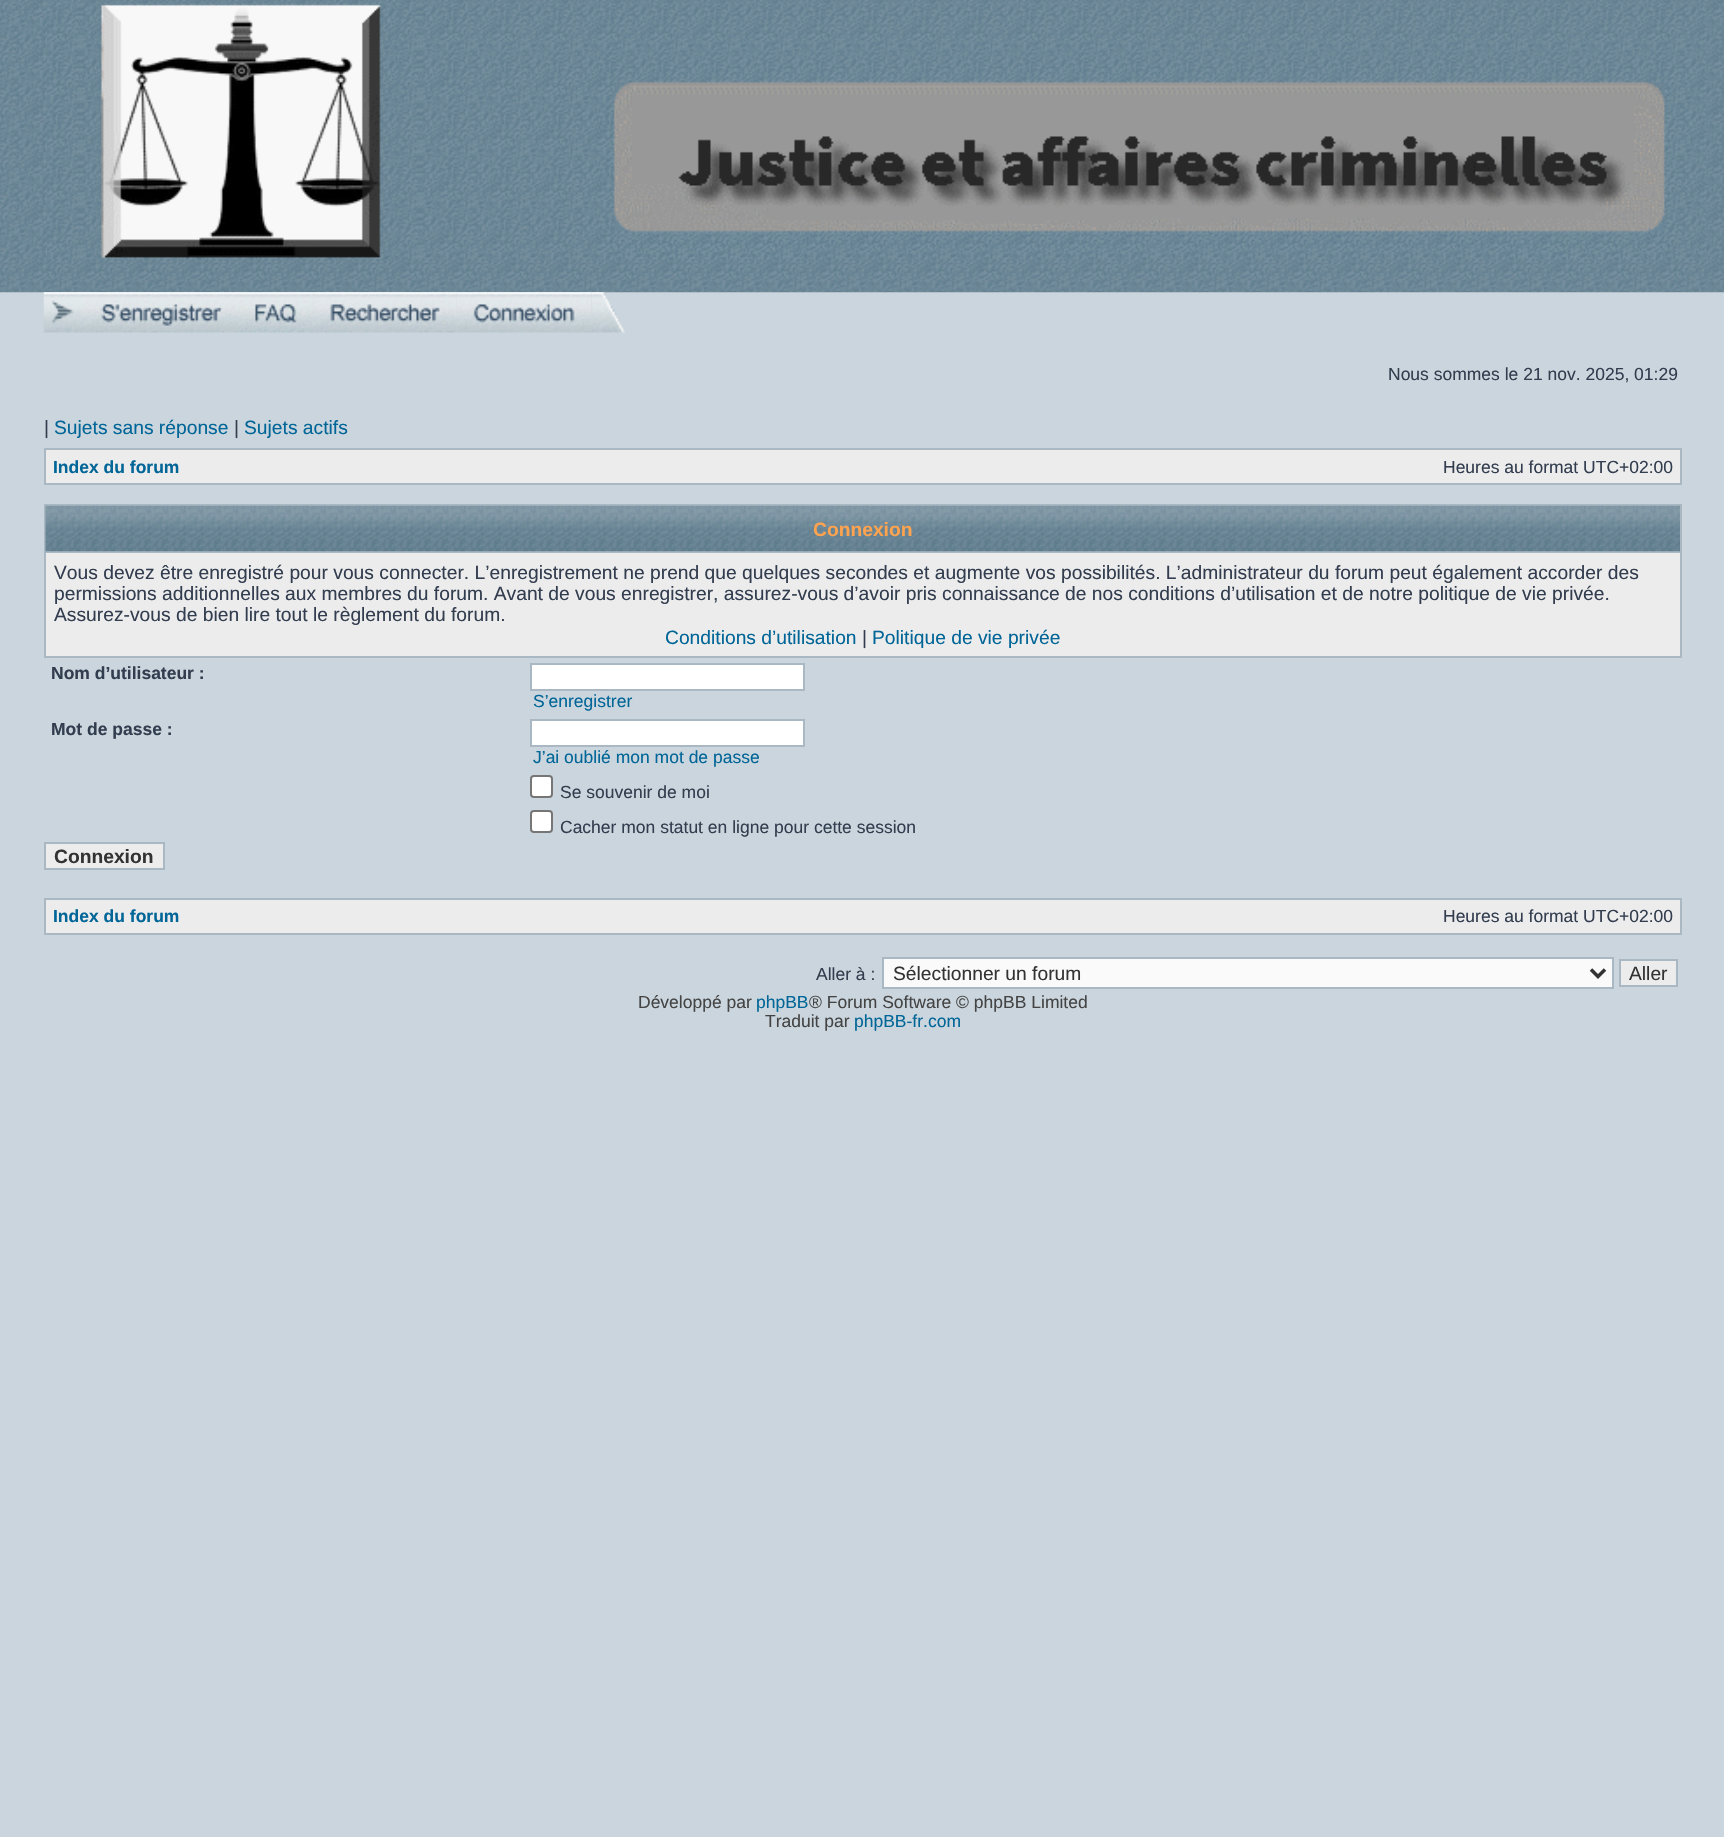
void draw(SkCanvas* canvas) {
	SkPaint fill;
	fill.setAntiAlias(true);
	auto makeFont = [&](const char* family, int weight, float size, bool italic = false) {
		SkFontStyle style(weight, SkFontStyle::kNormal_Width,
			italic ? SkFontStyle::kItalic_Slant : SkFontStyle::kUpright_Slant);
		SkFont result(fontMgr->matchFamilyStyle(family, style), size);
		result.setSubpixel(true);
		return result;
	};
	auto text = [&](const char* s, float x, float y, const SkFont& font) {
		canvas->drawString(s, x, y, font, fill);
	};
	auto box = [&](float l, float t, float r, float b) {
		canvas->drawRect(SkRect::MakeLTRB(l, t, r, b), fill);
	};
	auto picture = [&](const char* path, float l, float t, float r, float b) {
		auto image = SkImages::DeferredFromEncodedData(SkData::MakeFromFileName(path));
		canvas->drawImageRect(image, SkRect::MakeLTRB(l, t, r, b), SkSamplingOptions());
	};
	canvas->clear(0xFFCAD5DD);
	picture("image0.png", 0, 0, 1724, 293);
	picture("image1.png", 47, 3, 1707, 259);
	picture("image2.png", 43, 292, 84, 333);
	picture("image3.png", 84, 292, 238, 333);
	picture("image4.png", 238, 292, 314, 333);
	picture("image5.png", 313, 292, 457, 333);
	picture("image6.png", 456, 292, 592, 333);
	picture("image7.png", 591, 292, 625, 333);
	fill.setColor(0xFFA9B8C2);
	box(44, 448, 1682, 485);
	fill.setColor(0xFFECECEC);
	box(46, 450, 1680, 483);
	fill.setColor(0xFFA9B8C2);
	box(44, 504, 1682, 658);
	picture("image8.png", 45, 505, 1680, 552);
	fill.setColor(0xFFECECEC);
	box(46, 553, 1680, 656);
	fill.setColor(0xFFFFFFFF);
	canvas->drawRect(SkRect::MakeLTRB(531, 664, 804, 690), fill);
	fill.setStyle(SkPaint::kStroke_Style);
	fill.setStrokeWidth(2);
	fill.setColor(0xFFA9B8C2);
	canvas->drawRect(SkRect::MakeLTRB(531, 664, 804, 690), fill);
	fill.setStyle(SkPaint::kFill_Style);
	fill.setColor(0xFFFFFFFF);
	canvas->drawRect(SkRect::MakeLTRB(531, 720, 804, 746), fill);
	fill.setStyle(SkPaint::kStroke_Style);
	fill.setColor(0xFFA9B8C2);
	canvas->drawRect(SkRect::MakeLTRB(531, 720, 804, 746), fill);
	fill.setStyle(SkPaint::kFill_Style);
	fill.setColor(0xFFFFFFFF);
	canvas->drawRoundRect(SkRect::MakeLTRB(531, 776, 552, 797), 3, 3, fill);
	fill.setStyle(SkPaint::kStroke_Style);
	fill.setColor(0xFF767676);
	canvas->drawRoundRect(SkRect::MakeLTRB(531, 776, 552, 797), 3, 3, fill);
	fill.setStyle(SkPaint::kFill_Style);
	fill.setColor(0xFFFFFFFF);
	canvas->drawRoundRect(SkRect::MakeLTRB(531, 811, 552, 832), 3, 3, fill);
	fill.setStyle(SkPaint::kStroke_Style);
	fill.setColor(0xFF767676);
	canvas->drawRoundRect(SkRect::MakeLTRB(531, 811, 552, 832), 3, 3, fill);
	fill.setStyle(SkPaint::kFill_Style);
	fill.setColor(0xFFECECEC);
	canvas->drawRect(SkRect::MakeLTRB(45, 843, 164, 869), fill);
	fill.setStyle(SkPaint::kStroke_Style);
	fill.setColor(0xFFA9B8C2);
	canvas->drawRect(SkRect::MakeLTRB(45, 843, 164, 869), fill);
	fill.setStyle(SkPaint::kFill_Style);
	box(44, 898, 1682, 935);
	fill.setColor(0xFFECECEC);
	box(46, 900, 1680, 933);
	fill.setColor(0xFFFAFAFA);
	canvas->drawRect(SkRect::MakeLTRB(883, 958, 1613, 988), fill);
	fill.setStyle(SkPaint::kStroke_Style);
	fill.setColor(0xFFA9B8C2);
	canvas->drawRect(SkRect::MakeLTRB(883, 958, 1613, 988), fill);
	fill.setStrokeWidth(3.5f);
	fill.setColor(0xFF333333);
	canvas->drawPath(SkPathBuilder().moveTo(1591, 969.5f).lineTo(1598, 976.5f).lineTo(1605, 969.5f).detach(), fill);
	fill.setStyle(SkPaint::kFill_Style);
	fill.setColor(0xFFECECEC);
	canvas->drawRect(SkRect::MakeLTRB(1620, 960, 1677, 986), fill);
	fill.setStyle(SkPaint::kStroke_Style);
	fill.setStrokeWidth(2);
	fill.setColor(0xFFA9B8C2);
	canvas->drawRect(SkRect::MakeLTRB(1620, 960, 1677, 986), fill);
	auto font1 = makeFont("Liberation Sans", 400, 17.5f);
	fill.setStyle(SkPaint::kFill_Style);
	fill.setColor(0xFF323D4F);
	text("Nous sommes le 21 nov. 2025, 01:29", 1388, 380, font1);
	auto font2 = makeFont("Liberation Sans", 400, 19.25f);
	text("|", 44, 434, font2);
	fill.setColor(0xFF006597);
	text("Sujets sans réponse", 54, 434, font2);
	fill.setColor(0xFF323D4F);
	text("|", 234, 434, font2);
	fill.setColor(0xFF006597);
	text("Sujets actifs", 244, 434, font2);
	auto font3 = makeFont("Liberation Sans", 700, 17.5f);
	text("Index du forum", 53, 473, font3);
	fill.setColor(0xFF323D4F);
	text("Heures au format UTC+02:00", 1443, 473, font1);
	auto font4 = makeFont("Liberation Sans", 700, 19.25f);
	fill.setColor(0xFFFFA34F);
	text("Connexion", 813, 536, font4);
	fill.setColor(0xFF323D4F);
	text("Vous devez être enregistré pour vous connecter. L’enregistrement ne prend que quelques secondes et augmente vos possibilités. L’administrateur du forum peut également accorder des", 54, 579, font2);
	text("permissions additionnelles aux membres du forum. Avant de vous enregistrer, assurez-vous d’avoir pris connaissance de nos conditions d’utilisation et de notre politique de vie privée.", 54, 600, font2);
	text("Assurez-vous de bien lire tout le règlement du forum.", 54, 621, font2);
	fill.setColor(0xFF006597);
	text("Conditions d’utilisation", 665, 644, font2);
	fill.setColor(0xFF323D4F);
	text("|", 862, 644, font2);
	fill.setColor(0xFF006597);
	text("Politique de vie privée", 872, 644, font2);
	fill.setColor(0xFF323D4F);
	text("Nom d’utilisateur :", 51, 679, font3);
	fill.setColor(0xFF006597);
	text("S’enregistrer", 533, 707, font1);
	fill.setColor(0xFF323D4F);
	text("Mot de passe :", 51, 735, font3);
	fill.setColor(0xFF006597);
	text("J’ai oublié mon mot de passe", 533, 763, font1);
	fill.setColor(0xFF323D4F);
	text("Se souvenir de moi", 560, 798, font1);
	text("Cacher mon statut en ligne pour cette session", 560, 833, font1);
	fill.setColor(0xFF333333);
	text("Connexion", 54, 863, font4);
	fill.setColor(0xFF006597);
	text("Index du forum", 53, 922, font3);
	fill.setColor(0xFF323D4F);
	text("Heures au format UTC+02:00", 1443, 922, font1);
	text("Aller à :", 816, 980, font1);
	fill.setColor(0xFF333333);
	text("Sélectionner un forum", 893, 980, font2);
	text("Aller", 1629, 980, font2);
	fill.setColor(0xFF444444);
	text("Développé par", 638, 1008, font1);
	fill.setColor(0xFF006597);
	text("phpBB", 756, 1008, font1);
	fill.setColor(0xFF444444);
	text("® Forum Software © phpBB Limited", 809, 1008, font1);
	text("Traduit par", 765, 1027, font1);
	fill.setColor(0xFF006597);
	text("phpBB-fr.com", 854, 1027, font1);
}
